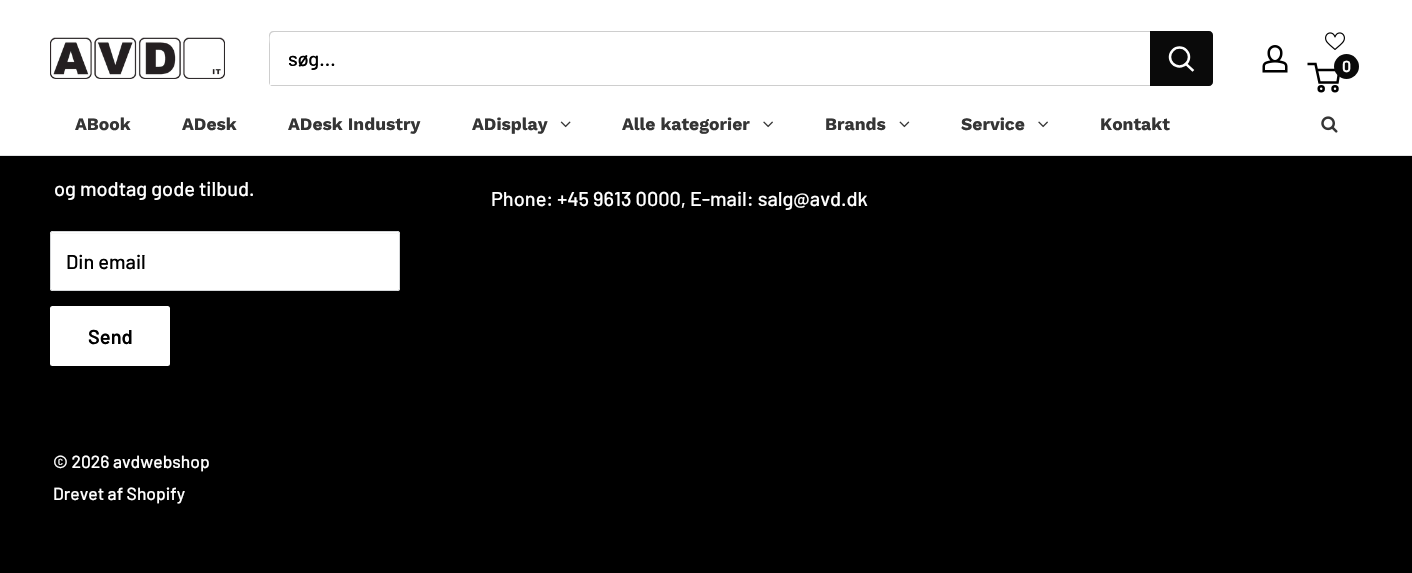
void draw(SkCanvas* canvas) {
	SkPaint fill;
	fill.setAntiAlias(true);
	auto makeFont = [&](const char* family, int weight, float size, bool italic = false) {
		SkFontStyle style(weight, SkFontStyle::kNormal_Width,
			italic ? SkFontStyle::kItalic_Slant : SkFontStyle::kUpright_Slant);
		SkFont result(fontMgr->matchFamilyStyle(family, style), size);
		result.setSubpixel(true);
		return result;
	};
	auto text = [&](const char* s, float x, float y, const SkFont& font) {
		canvas->drawString(s, x, y, font, fill);
	};
	auto box = [&](float l, float t, float r, float b) {
		canvas->drawRect(SkRect::MakeLTRB(l, t, r, b), fill);
	};
	auto roundBox = [&](float l, float t, float r, float b, float radius) {
		canvas->drawRoundRect(SkRect::MakeLTRB(l, t, r, b), radius, radius, fill);
	};
	auto picture = [&](const char* path, float l, float t, float r, float b) {
		auto image = SkImages::DeferredFromEncodedData(SkData::MakeFromFileName(path));
		canvas->drawImageRect(image, SkRect::MakeLTRB(l, t, r, b), SkSamplingOptions());
	};
	canvas->clear(0xFF000000);
	fill.setColor(0xFFFFFFFF);
	box(0, 0, 1412, 155);
	picture("image0.png", 50, 37, 225, 79);
	fill.setColor(0xFFCECECE);
	canvas->drawPath(SkPathBuilder().moveTo(270, 85).cubicTo(271, 86, 272, 86, 273, 86).lineTo(1209, 86).cubicTo(1211, 86, 1213, 84, 1213, 82).lineTo(1213, 35).cubicTo(1213, 33, 1212, 32, 1210, 31).lineTo(1211, 34).lineTo(1211, 81).cubicTo(1211, 83, 1210, 85, 1208, 85).close().detach(), fill);
	fill.setColor(0x4D5D5D5D);
	canvas->drawPath(SkPathBuilder().moveTo(274, 32).lineTo(1210, 32).lineTo(1212, 33).cubicTo(1212, 32, 1210, 31, 1209, 31).lineTo(273, 31).cubicTo(271, 31, 269, 33, 269, 35).lineTo(269, 82).cubicTo(269, 83, 269, 84, 270, 85).lineTo(270, 44).cubicTo(270, 42, 268, 32, 274, 32).close().detach(), fill);
	fill.setColor(0xFF0A0A0A);
	canvas->drawPath(SkPathBuilder().moveTo(1150, 31).lineTo(1209, 31).cubicTo(1211, 31, 1213, 33, 1213, 35).lineTo(1213, 82).cubicTo(1213, 84, 1211, 86, 1209, 86).lineTo(1150, 86).close().detach(), fill);
	fill.setStyle(SkPaint::kStroke_Style);
	fill.setStrokeWidth(2.5f);
	fill.setStrokeCap(SkPaint::kSquare_Cap);
	fill.setColor(0xFFFFFFFF);
	canvas->drawPath(SkPathBuilder().moveTo(1192.5f, 70).lineTo(1186, 64).detach(), fill);
	fill.setStrokeCap(SkPaint::kButt_Cap);
	canvas->drawCircle(1179.5f, 57, 9.5f, fill);
	picture("image1.png", 1262, 45, 1288, 73);
	picture("image2.png", 1325, 32, 1345, 50);
	fill.setColor(0xFF000000);
	canvas->drawCircle(1321.2f, 88.8f, 2.5f, fill);
	canvas->drawCircle(1335, 88.8f, 2.5f, fill);
	canvas->drawPath(SkPathBuilder().moveTo(1316.5f, 70).lineTo(1339.5f, 70).lineTo(1337.5f, 82.5f).lineTo(1319.5f, 82.5f).lineTo(1315.5f, 64).lineTo(1307.5f, 64).detach(), fill);
	fill.setStyle(SkPaint::kFill_Style);
	fill.setColor(0xFF0A0A0A);
	canvas->drawCircle(1346.5f, 66.5f, 12.5f, fill);
	fill.setColor(0xFFE1E3E4);
	box(0, 155, 1412, 156);
	picture("image3.png", 560, 121, 571, 128);
	picture("image4.png", 763, 121, 773, 128);
	picture("image5.png", 899, 121, 910, 128);
	picture("image4.png", 1038, 121, 1048, 128);
	picture("image6.png", 1321, 116, 1338, 133);
	fill.setColor(0xFFFFFFFF);
	roundBox(50, 231, 400, 291, 2.5f);
	fill.setColor(0xFFF8F8F8);
	canvas->drawPath(SkPathBuilder().moveTo(52, 234).lineTo(398, 234).lineTo(399, 235).lineTo(399, 234).lineTo(398, 233).lineTo(51, 233).lineTo(51, 235).close().detach(), fill);
	fill.setStyle(SkPaint::kStroke_Style);
	fill.setStrokeWidth(1);
	fill.setColor(0xFFD4D6D8);
	canvas->drawRoundRect(SkRect::MakeLTRB(50.5f, 231.5f, 399.5f, 290.5f), 2, 2, fill);
	fill.setStyle(SkPaint::kFill_Style);
	fill.setColor(0xFFFFFFFF);
	roundBox(50, 306, 170, 366, 2.5f);
	auto font1 = makeFont("Barlow", 500, 20);
	fill.setColor(0xFF000000);
	text("søg...", 288, 66, font1);
	auto font2 = makeFont("Barlow", 600, 16);
	fill.setColor(0xFFFFFFFF);
	text("0", 1342, 72, font2);
	auto font3 = makeFont("Work Sans", 700, 17.5f);
	fill.setColor(0xFF353535);
	text("ABook", 75, 130, font3);
	text("ADesk", 182, 130, font3);
	text("ADesk Industry", 288, 130, font3);
	text("ADisplay", 472, 130, font3);
	text("Alle kategorier", 622, 130, font3);
	text("Brands", 825, 130, font3);
	text("Service", 961, 130, font3);
	text("Kontakt", 1100, 130, font3);
	fill.setColor(0xFFFFFFFF);
	text("og modtag gode tilbud.", 54, 196, font1);
	fill.setColor(0xFF000000);
	text("Din email", 66, 269, font1);
	auto font4 = makeFont("Barlow", 600, 20);
	text("Send", 88, 344, font4);
	fill.setColor(0xFFFFFFFF);
	text("Phone: +45 9613 0000, E-mail: salg@avd.dk", 491, 206, font1);
	auto font5 = makeFont("Barlow", 500, 17.5f);
	text("© 2026 avdwebshop", 53, 468, font5);
	text("Drevet af Shopify", 53, 500, font5);
}
